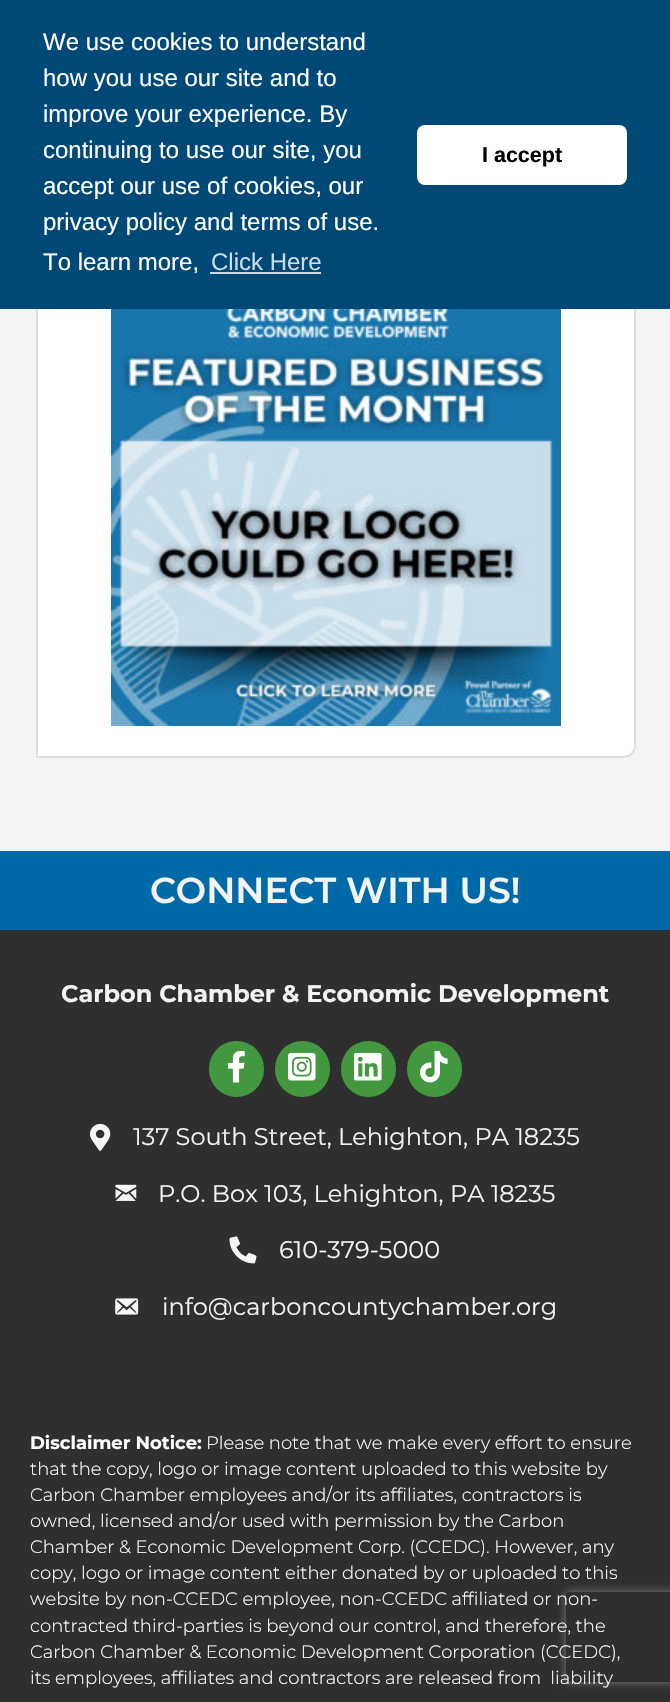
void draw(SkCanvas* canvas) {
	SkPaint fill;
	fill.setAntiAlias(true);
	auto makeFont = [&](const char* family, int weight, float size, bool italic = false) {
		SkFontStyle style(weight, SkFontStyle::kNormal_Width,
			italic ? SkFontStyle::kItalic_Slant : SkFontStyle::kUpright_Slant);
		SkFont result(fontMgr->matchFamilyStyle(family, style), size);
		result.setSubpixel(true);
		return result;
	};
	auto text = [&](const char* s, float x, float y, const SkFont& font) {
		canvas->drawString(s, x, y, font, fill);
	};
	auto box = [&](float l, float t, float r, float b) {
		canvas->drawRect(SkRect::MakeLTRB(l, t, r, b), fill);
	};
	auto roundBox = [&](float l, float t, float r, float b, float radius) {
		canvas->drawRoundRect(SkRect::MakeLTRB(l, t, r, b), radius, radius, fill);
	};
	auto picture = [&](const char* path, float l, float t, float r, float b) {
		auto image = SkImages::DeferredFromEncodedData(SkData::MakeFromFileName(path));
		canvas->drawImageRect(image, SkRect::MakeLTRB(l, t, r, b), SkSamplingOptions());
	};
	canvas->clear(0xFFF3F3F3);
	fill.setColor(0xFFFFFFFF);
	canvas->drawPath(SkPathBuilder().moveTo(37, 246).lineTo(624, 246).cubicTo(630, 246, 635, 251, 635, 257).lineTo(635, 746).cubicTo(635, 752, 630, 757, 624, 757).lineTo(37, 757).close().detach(), fill);
	fill.setStyle(SkPaint::kStroke_Style);
	fill.setStrokeWidth(2);
	fill.setColor(0xFFDDDDDD);
	canvas->drawPath(SkPathBuilder().moveTo(37, 246).lineTo(624, 246).cubicTo(630, 246, 635, 251, 635, 257).lineTo(635, 746).cubicTo(635, 752, 630, 757, 624, 757).lineTo(37, 757).close().detach(), fill);
	fill.setStyle(SkPaint::kFill_Style);
	fill.setColor(0xFF004876);
	box(0, 0, 670, 309);
	fill.setColor(0xFFCCDAE4);
	box(210, 272, 321, 274);
	fill.setColor(0xFFFFFFFF);
	roundBox(417, 125, 627, 185, 8);
	picture("image0.png", 111, 309, 561, 726);
	fill.setColor(0xFF006AA8);
	box(0, 851, 670, 930);
	fill.setColor(0xFF2F2F2F);
	box(0, 930, 670, 1702);
	fill.setColor(0xFF43973F);
	roundBox(209, 1041, 264, 1097, 27.5f);
	picture("image1.png", 227, 1050, 245, 1083);
	roundBox(275, 1041, 330, 1097, 27.5f);
	picture("image2.png", 288, 1052, 316, 1081);
	roundBox(341, 1041, 396, 1097, 27.5f);
	picture("image3.png", 354, 1052, 382, 1081);
	roundBox(407, 1041, 462, 1097, 27.5f);
	picture("image4.png", 420, 1050, 448, 1083);
	picture("image5.png", 90, 1123, 111, 1151);
	picture("image6.png", 115, 1184, 137, 1201);
	picture("image7.png", 229, 1236, 257, 1264);
	picture("image8.png", 115, 1298, 139, 1315);
	canvas->save();
	canvas->clipPath(SkPathBuilder(SkPathFillType::kEvenOdd).moveTo(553, 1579).lineTo(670, 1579).lineTo(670, 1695).lineTo(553, 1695).close().moveTo(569, 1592).lineTo(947, 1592).cubicTo(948.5f, 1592, 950, 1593.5f, 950, 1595).lineTo(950, 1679).cubicTo(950, 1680.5f, 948.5f, 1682, 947, 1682).lineTo(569, 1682).cubicTo(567.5f, 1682, 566, 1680.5f, 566, 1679).lineTo(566, 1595).cubicTo(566, 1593.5f, 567.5f, 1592, 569, 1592).close().detach(), true);
	fill.setColor(0xFF808080);
	fill.setMaskFilter(SkMaskFilter::MakeBlur(kNormal_SkBlurStyle, 4));
	canvas->drawRoundRect(SkRect::MakeLTRB(566, 1592, 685, 1682), 3, 3, fill);
	fill.setMaskFilter(nullptr);
	canvas->restore();
	auto font1 = makeFont("Liberation Sans", 400, 24);
	fill.setColor(0xFFFFFFFF);
	text("We use cookies to understand", 43, 50, font1);
	text("how you use our site and to", 43, 86, font1);
	text("improve your experience. By", 43, 122, font1);
	text("continuing to use our site, you", 43, 158, font1);
	text("accept our use of cookies, our", 43, 194, font1);
	text("privacy policy and terms of use.", 43, 230, font1);
	text("To learn more,", 43, 270, font1);
	fill.setColor(0xFFCCDAE4);
	text("Click Here", 211, 270, font1);
	auto font2 = makeFont("Liberation Sans", 700, 21.5f);
	fill.setColor(0xFF000000);
	text("I accept", 482, 162, font2);
	auto font3 = makeFont("Montserrat", 600, 36);
	fill.setColor(0xFFF3F3F3);
	text("CONNECT WITH US!", 150, 903, font3);
	auto font4 = makeFont("Montserrat", 700, 24);
	text("Carbon Chamber & Economic Development", 61, 1002, font4);
	auto font5 = makeFont("Montserrat", 400, 24);
	text("137 South Street, Lehighton, PA 18235", 133, 1145, font5);
	text("P.O. Box 103, Lehighton, PA 18235", 158, 1202, font5);
	text("610-379-5000", 279, 1258, font5);
	text("info@carboncountychamber.org", 162, 1315, font5);
	auto font6 = makeFont("Montserrat", 700, 18);
	fill.setColor(0xFFFFFFFF);
	text("Disclaimer Notice:", 30, 1449, font6);
	auto font7 = makeFont("Montserrat", 300, 18);
	text("Please note that we make every effort to ensure", 206, 1449, font7);
	text("that the copy, logo or image content uploaded to this website by", 30, 1475, font7);
	text("Carbon Chamber employees and/or its affiliates, contractors is", 30, 1501, font7);
	text("owned, licensed and/or used with permission by the Carbon", 30, 1527, font7);
	text("Chamber & Economic Development Corp. (CCEDC). However, any", 30, 1553, font7);
	text("copy, logo or image content either donated by or uploaded to this", 30, 1579, font7);
	text("website by non-CCEDC employee, non-CCEDC affiliated or non-", 30, 1605, font7);
	text("contracted third-parties is beyond our control, and therefore, the", 30, 1632, font7);
	text("Carbon Chamber & Economic Development Corporation (CCEDC),", 30, 1658, font7);
	text("its employees, affiliates and contractors are released from  liability", 30, 1684, font7);
}
